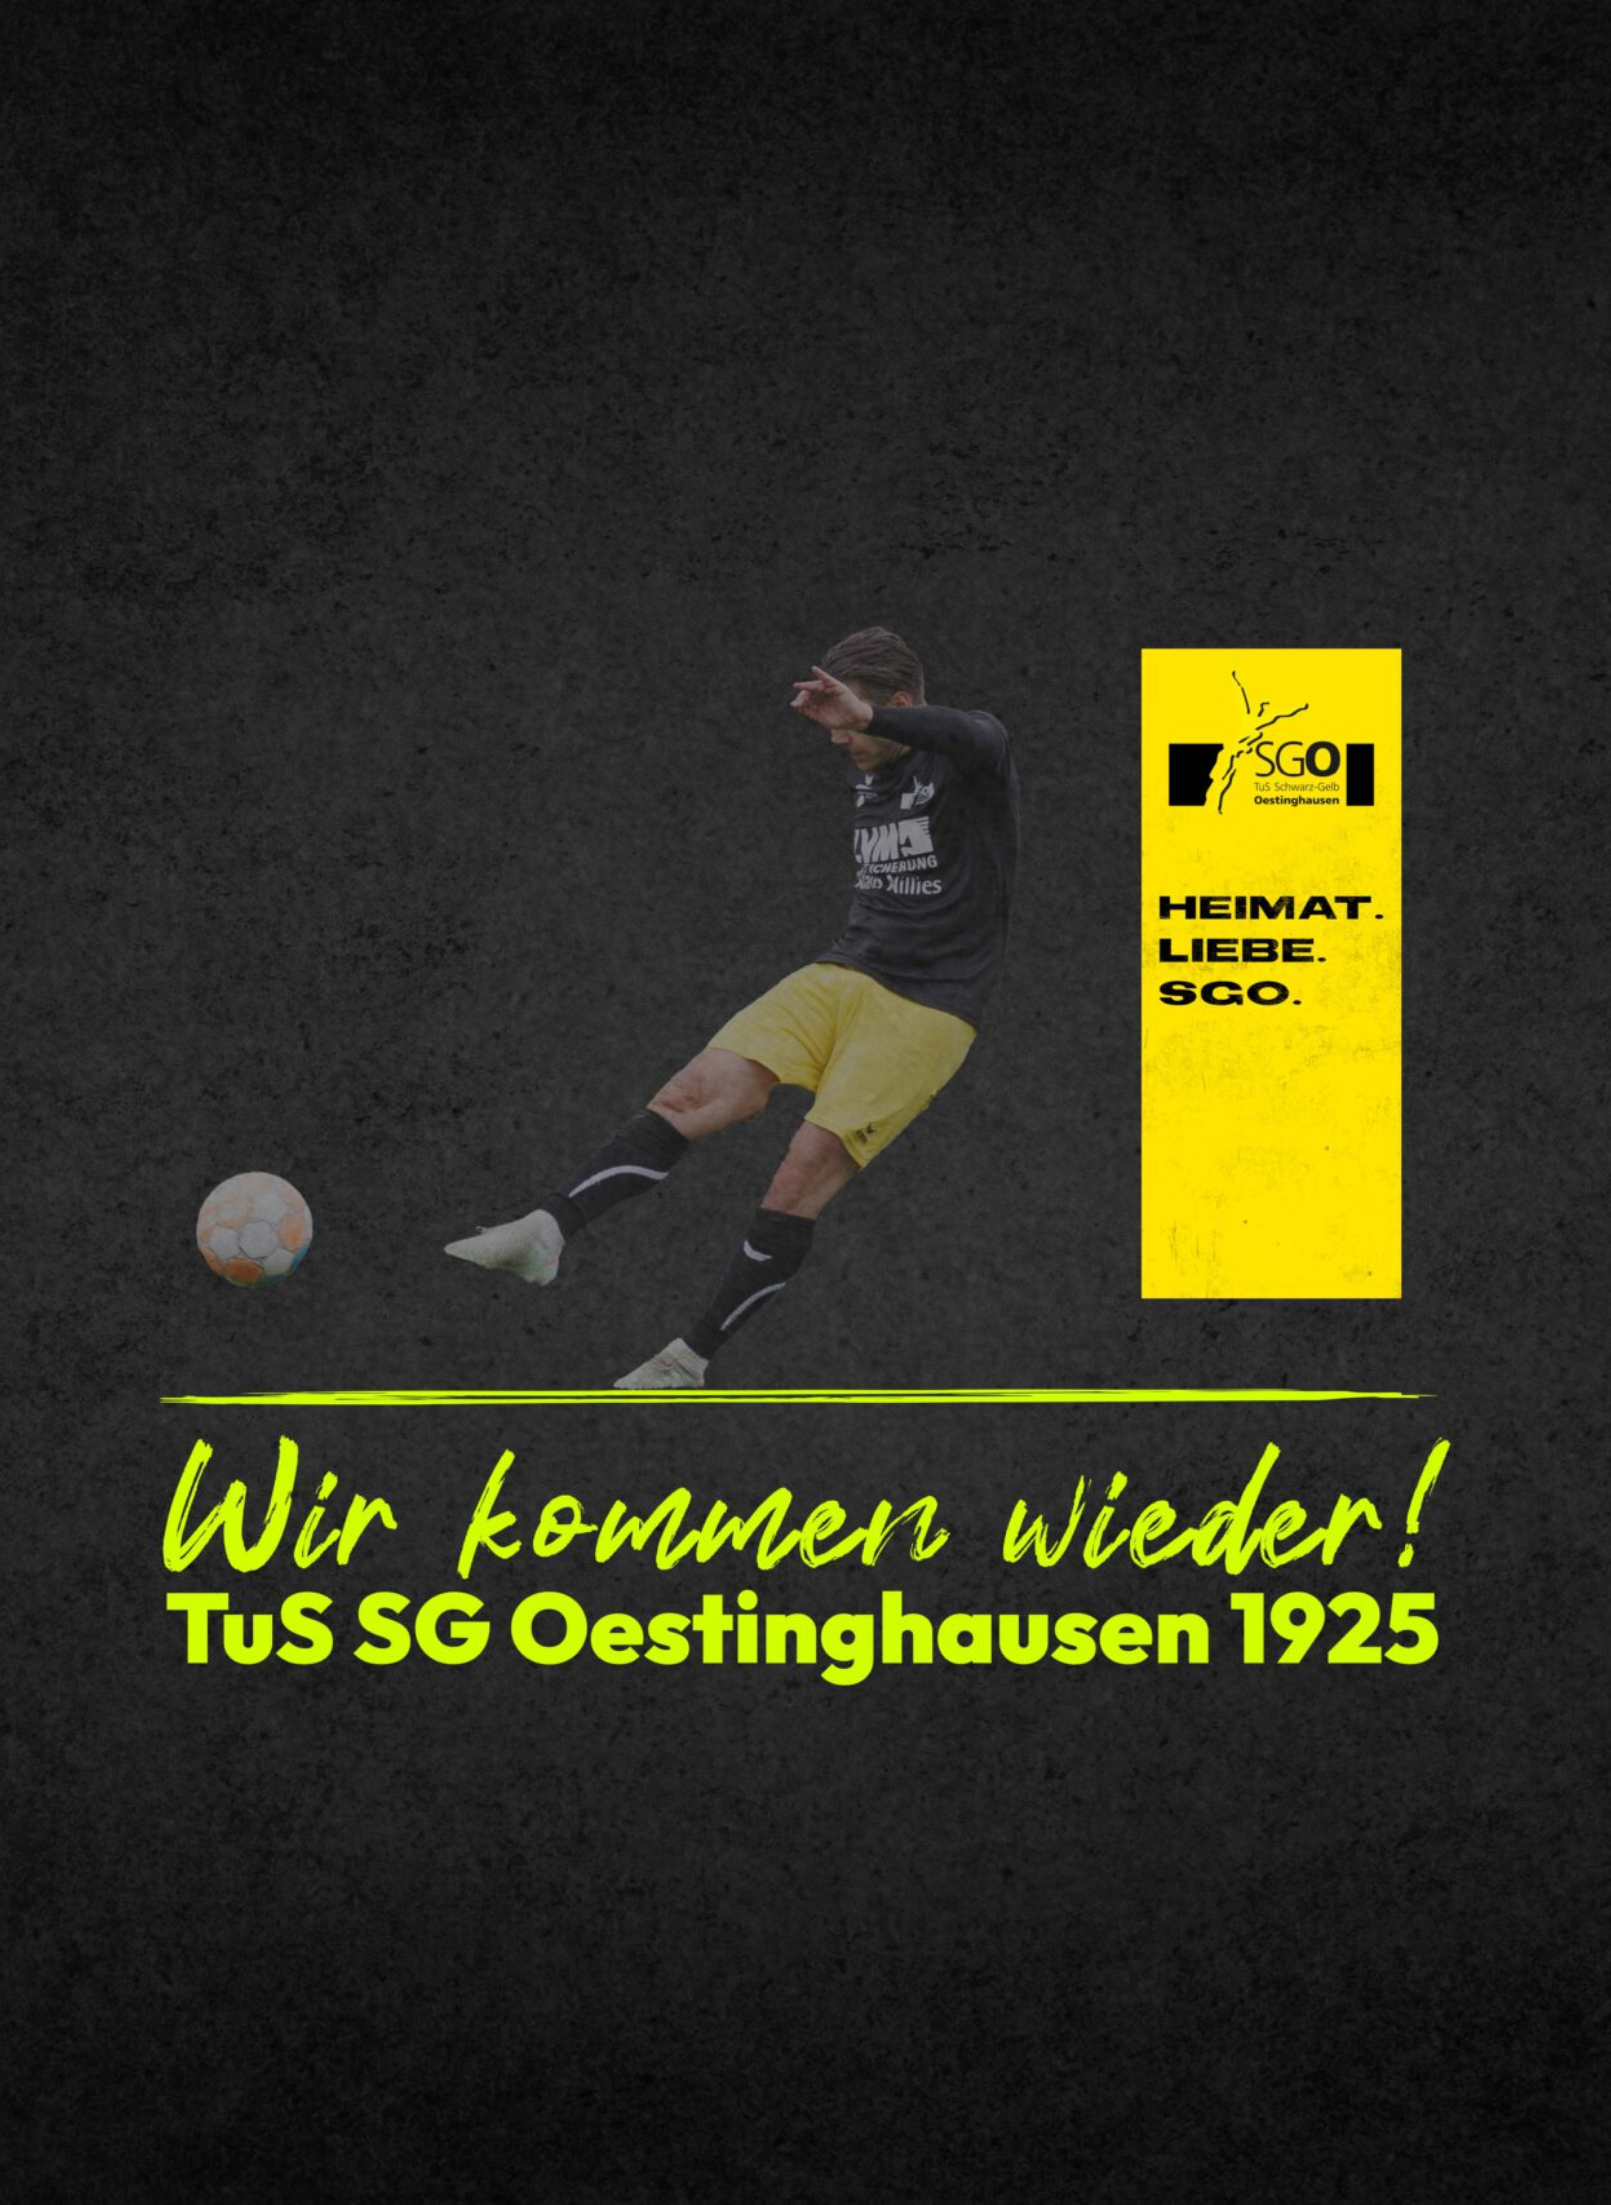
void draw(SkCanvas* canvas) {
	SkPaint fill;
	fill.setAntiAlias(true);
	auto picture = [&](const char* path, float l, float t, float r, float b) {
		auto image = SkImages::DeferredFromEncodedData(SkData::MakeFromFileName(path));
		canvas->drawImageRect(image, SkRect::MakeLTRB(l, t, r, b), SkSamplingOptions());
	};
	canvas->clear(0xFFFFFFFF);
	picture("image0.png", 0, 0, 1611, 2205);
}
